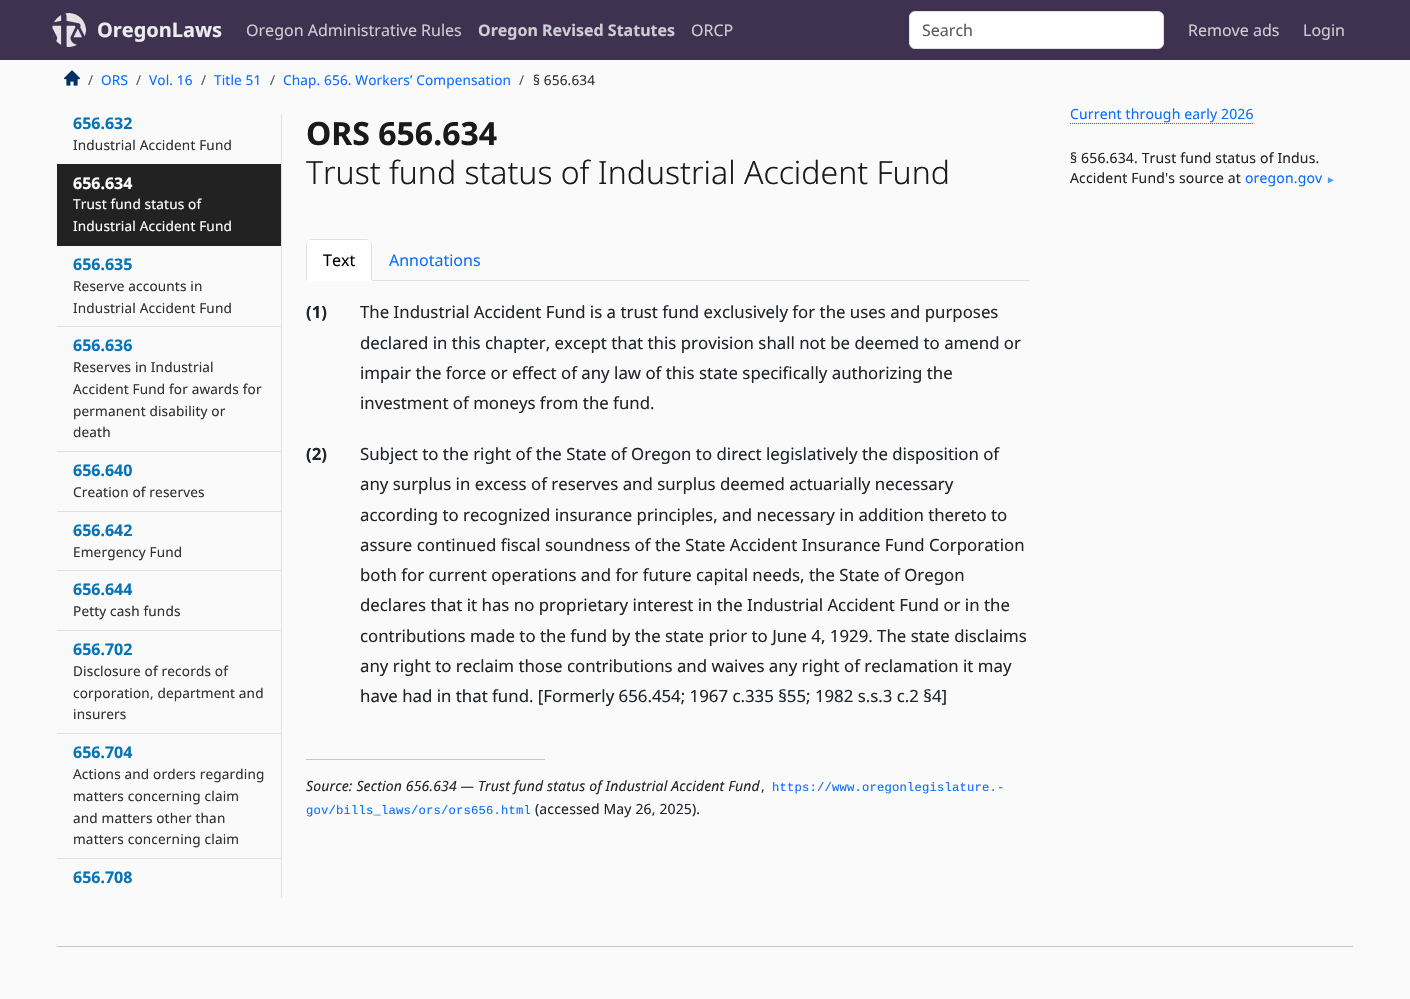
void draw(SkCanvas* canvas) {
	SkPaint fill;
	fill.setAntiAlias(true);
	auto makeFont = [&](const char* family, int weight, float size, bool italic = false) {
		SkFontStyle style(weight, SkFontStyle::kNormal_Width,
			italic ? SkFontStyle::kItalic_Slant : SkFontStyle::kUpright_Slant);
		SkFont result(fontMgr->matchFamilyStyle(family, style), size);
		result.setSubpixel(true);
		return result;
	};
	auto text = [&](const char* s, float x, float y, const SkFont& font) {
		canvas->drawString(s, x, y, font, fill);
	};
	auto spacedText = [&](const char* s, float x, float y, const SkFont& font, const SkPaint& ink, float letter, float word) {
		std::vector<SkGlyphID> glyphs(font.countText(s, strlen(s), SkTextEncoding::kUTF8));
		std::vector<float> xs(glyphs.size());
		font.textToGlyphs(s, strlen(s), SkTextEncoding::kUTF8, glyphs);
		font.getXPos(glyphs, xs, x);
		float extra = 0;
		for (size_t i = 0; i < glyphs.size(); i++) {
			xs[i] += extra;
			extra += letter + word * (glyphs[i] == font.unicharToGlyph(' '));
		}
		canvas->drawTextBlob(SkTextBlob::MakeFromPosHGlyphs(glyphs, xs, y, font), 0, 0, ink);
	};
	auto box = [&](float l, float t, float r, float b) {
		canvas->drawRect(SkRect::MakeLTRB(l, t, r, b), fill);
	};
	auto picture = [&](const char* path, float l, float t, float r, float b) {
		auto image = SkImages::DeferredFromEncodedData(SkData::MakeFromFileName(path));
		canvas->drawImageRect(image, SkRect::MakeLTRB(l, t, r, b), SkSamplingOptions());
	};
	canvas->clear(0xFFFAFAFA);
	fill.setColor(0xFF3F3250);
	box(0, 0, 1410, 60);
	picture("image0.png", 52, 13, 86, 47);
	fill.setColor(0xFFFFFFFF);
	canvas->drawRoundRect(SkRect::MakeLTRB(909.5f, 11.5f, 1163.5f, 48.5f), 5.5f, 5.5f, fill);
	fill.setStyle(SkPaint::kStroke_Style);
	fill.setStrokeWidth(1);
	fill.setColor(0xFFDEE2E6);
	canvas->drawRoundRect(SkRect::MakeLTRB(909.5f, 11.5f, 1163.5f, 48.5f), 5.5f, 5.5f, fill);
	picture("image1.png", 64, 70, 80, 86);
	fill.setStyle(SkPaint::kFill_Style);
	box(281, 114, 282, 898);
	fill.setColor(0xFF222222);
	box(57, 164, 281, 246);
	fill.setColor(0xFFDEE2E6);
	box(57, 326, 281, 327);
	box(57, 451, 281, 452);
	box(57, 511, 281, 512);
	box(57, 570, 281, 571);
	box(57, 630, 281, 631);
	box(57, 733, 281, 734);
	box(57, 858, 281, 859);
	box(372, 280, 1029, 281);
	fill.setColor(0xFFFFFFFF);
	canvas->drawPath(SkPathBuilder().moveTo(312, 239).lineTo(366, 239).cubicTo(369.5f, 239, 372, 241.5f, 372, 245).lineTo(372, 281).lineTo(306, 281).lineTo(306, 245).cubicTo(306, 241.5f, 308.5f, 239, 312, 239).close().detach(), fill);
	fill.setColor(0xFFDEE2E6);
	canvas->drawPath(SkPathBuilder().moveTo(312, 239).cubicTo(310, 239, 309, 240, 308, 241).cubicTo(309, 240, 310, 240, 312, 240).lineTo(366, 240).cubicTo(368, 240, 369, 240, 370, 241).cubicTo(369, 240, 368, 239, 366, 239).close().detach(), fill);
	canvas->drawPath(SkPathBuilder().moveTo(372, 281).lineTo(372, 245).cubicTo(372, 244, 371, 242, 370, 241).cubicTo(370, 242, 371, 244, 371, 245).lineTo(371, 280).close().detach(), fill);
	fill.setColor(0xFFFFFFFF);
	canvas->drawPath(SkPathBuilder().moveTo(372, 281).lineTo(371, 280).lineTo(307, 280).lineTo(306, 281).close().detach(), fill);
	fill.setColor(0xFFDEE2E6);
	canvas->drawPath(SkPathBuilder().moveTo(306, 281).lineTo(307, 280).lineTo(307, 245).cubicTo(307, 244, 308, 242, 308, 241).cubicTo(307, 242, 306, 244, 306, 245).close().detach(), fill);
	fill.setColor(0xFFC4C5C6);
	box(306, 759, 545, 760);
	fill.setStyle(SkPaint::kStroke_Style);
	fill.setColor(0xFF0D6EFD);
	fill.setPathEffect(SkDashPathEffect::Make({{1, 1}}, 0));
	canvas->drawPath(SkPathBuilder().moveTo(1070, 123.5f).lineTo(1254, 123.5f).detach(), fill);
	fill.setPathEffect(nullptr);
	fill.setStyle(SkPaint::kFill_Style);
	fill.setColor(0xFFC4C5C6);
	box(57, 946, 1353, 947);
	auto font1 = makeFont("Noto Sans", 700, 20);
	fill.setColor(0xFFECEBEE);
	text("OregonLaws", 97, 37, font1);
	auto font2 = makeFont("Noto Sans", 400, 16);
	fill.setColor(0xFFCFCCD3);
	text("Oregon Administrative Rules", 246, 36, font2);
	auto font3 = makeFont("Noto Sans", 700, 16);
	text("Oregon Revised Statutes", 478, 36, font3);
	text("ORCP", 691, 36, font2);
	fill.setColor(0xFF575A5D);
	text("Search", 922, 36, font2);
	fill.setColor(0xFFCFCCD3);
	text("Remove ads", 1188, 36, font2);
	text("Login", 1303, 36, font2);
	auto font4 = makeFont("Noto Sans", 400, 13.6f);
	fill.setColor(0xFF575A5D);
	spacedText("/", 88, 85, font4, fill, 0.15f, 0);
	fill.setColor(0xFF0D6EFD);
	spacedText("ORS", 101, 85, font4, fill, 0.15f, 0);
	fill.setColor(0xFF575A5D);
	spacedText("/", 136, 85, font4, fill, 0.15f, 0);
	fill.setColor(0xFF0D6EFD);
	spacedText("Vol. 16", 149, 85, font4, fill, 0.15f, 0);
	fill.setColor(0xFF575A5D);
	spacedText("/", 201, 85, font4, fill, 0.15f, 0);
	fill.setColor(0xFF0D6EFD);
	spacedText("Title 51", 214, 85, font4, fill, 0.15f, 0);
	fill.setColor(0xFF575A5D);
	spacedText("/", 270, 85, font4, fill, 0.15f, 0);
	fill.setColor(0xFF0D6EFD);
	spacedText("Chap. 656. Workers’ Compensation", 283, 85, font4, fill, 0.15f, 0);
	fill.setColor(0xFF575A5D);
	spacedText("/", 519, 85, font4, fill, 0.15f, 0);
	fill.setColor(0xFF323232);
	spacedText("§ 656.634", 533, 85, font4, fill, 0.15f, 0);
	fill.setColor(0xFF0774B6);
	text("656.632", 73, 129, font3);
	fill.setColor(0xFF323232);
	spacedText("Industrial Accident Fund", 73, 150, font4, fill, 0.15f, 0);
	fill.setColor(0xFFFFFFFF);
	text("656.634", 73, 189, font3);
	spacedText("Trust fund status of", 73, 209, font4, fill, 0.15f, 0);
	spacedText("Industrial Accident Fund", 73, 231, font4, fill, 0.15f, 0);
	fill.setColor(0xFF0774B6);
	text("656.635", 73, 270, font3);
	fill.setColor(0xFF323232);
	spacedText("Reserve accounts in", 73, 291, font4, fill, 0.15f, 0);
	spacedText("Industrial Accident Fund", 73, 313, font4, fill, 0.15f, 0);
	fill.setColor(0xFF0774B6);
	text("656.636", 73, 351, font3);
	fill.setColor(0xFF323232);
	spacedText("Reserves in Industrial", 73, 372, font4, fill, 0.15f, 0);
	spacedText("Accident Fund for awards for", 73, 394, font4, fill, 0.15f, 0);
	spacedText("permanent disability or", 73, 416, font4, fill, 0.15f, 0);
	spacedText("death", 73, 437, font4, fill, 0.15f, 0);
	fill.setColor(0xFF0774B6);
	text("656.640", 73, 476, font3);
	fill.setColor(0xFF323232);
	spacedText("Creation of reserves", 73, 497, font4, fill, 0.15f, 0);
	fill.setColor(0xFF0774B6);
	text("656.642", 73, 536, font3);
	fill.setColor(0xFF323232);
	spacedText("Emergency Fund", 73, 557, font4, fill, 0.15f, 0);
	fill.setColor(0xFF0774B6);
	text("656.644", 73, 595, font3);
	fill.setColor(0xFF323232);
	spacedText("Petty cash funds", 73, 616, font4, fill, 0.15f, 0);
	fill.setColor(0xFF0774B6);
	text("656.702", 73, 655, font3);
	fill.setColor(0xFF323232);
	spacedText("Disclosure of records of", 73, 676, font4, fill, 0.15f, 0);
	spacedText("corporation, department and", 73, 698, font4, fill, 0.15f, 0);
	spacedText("insurers", 73, 719, font4, fill, 0.15f, 0);
	fill.setColor(0xFF0774B6);
	text("656.704", 73, 758, font3);
	fill.setColor(0xFF323232);
	spacedText("Actions and orders regarding", 73, 779, font4, fill, 0.15f, 0);
	spacedText("matters concerning claim", 73, 801, font4, fill, 0.15f, 0);
	spacedText("and matters other than", 73, 823, font4, fill, 0.15f, 0);
	spacedText("matters concerning claim", 73, 844, font4, fill, 0.15f, 0);
	fill.setColor(0xFF0774B6);
	text("656.708", 73, 883, font3);
	auto font5 = makeFont("Noto Sans", 700, 32);
	fill.setColor(0xFF1A1A1A);
	text("ORS 656.634", 306, 145, font5);
	auto font6 = makeFont("Noto Sans", 300, 32);
	text("Trust fund status of Industrial Accident Fund", 306, 184, font6);
	fill.setColor(0xFF000000);
	text("Text", 323, 266, font2);
	fill.setColor(0xFF0D6EFD);
	text("Annotations", 389, 266, font2);
	auto font7 = makeFont("Noto Sans", 700, 16.8f);
	fill.setColor(0xFF212529);
	text("(1)", 306, 318, font7);
	auto font8 = makeFont("Noto Sans", 400, 16.8f);
	text("The Industrial Accident Fund is a trust fund exclusively for the uses and purposes", 360, 318, font8);
	text("declared in this chapter, except that this provision shall not be deemed to amend or", 360, 349, font8);
	text("impair the force or effect of any law of this state specifically authorizing the", 360, 379, font8);
	text("investment of moneys from the fund.", 360, 409, font8);
	text("(2)", 306, 460, font7);
	text("Subject to the right of the State of Oregon to direct legislatively the disposition of", 360, 460, font8);
	text("any surplus in excess of reserves and surplus deemed actuarially necessary", 360, 490, font8);
	text("according to recognized insurance principles, and necessary in addition thereto to", 360, 521, font8);
	text("assure continued fiscal soundness of the State Accident Insurance Fund Corporation", 360, 551, font8);
	text("both for current operations and for future capital needs, the State of Oregon", 360, 581, font8);
	text("declares that it has no proprietary interest in the Industrial Accident Fund or in the", 360, 611, font8);
	text("contributions made to the fund by the state prior to June 4, 1929. The state disclaims", 360, 642, font8);
	text("any right to reclaim those contributions and waives any right of reclamation it may", 360, 672, font8);
	text("have had in that fund. [Formerly 656.454; 1967 c.335 §55; 1982 s.s.3 c.2 §4]", 360, 702, font8);
	auto font9 = makeFont("Noto Sans", 400, 14, true);
	spacedText("Source: Section 656.634 — Trust fund status of Industrial Accident Fund", 306, 791, font9, fill, 0.15f, 0);
	auto font10 = makeFont("Noto Sans", 400, 14);
	spacedText(",", 761, 791, font10, fill, 0.15f, 0);
	auto font11 = makeFont("Liberation Mono", 400, 12.25f);
	fill.setColor(0xFF0D6EFD);
	spacedText("https://www.oregonlegislature.-", 772, 791, font11, fill, 0.15f, 0);
	spacedText("gov/bills_laws/ors/ors656.html", 306, 814, font11, fill, 0.15f, 0);
	fill.setColor(0xFF212529);
	spacedText("(accessed May 26, 2025).", 535, 814, font10, fill, 0.15f, 0);
	fill.setColor(0xFF0D6EFD);
	spacedText("Current through early 2026", 1070, 119, font10, fill, 0.15f, 0);
	fill.setColor(0xFF212529);
	spacedText("§ 656.634. Trust fund status of Indus.", 1070, 163, font10, fill, 0.15f, 0);
	spacedText("Accident Fund's source at", 1070, 183, font10, fill, 0.15f, 0);
	fill.setColor(0xFF0D6EFD);
	spacedText("oregon.gov", 1245, 183, font10, fill, 0.15f, 0);
	auto font12 = makeFont("Liberation Sans", 400, 10);
	fill.setColor(0xFF5498FC);
	spacedText("►", 1326, 183, font12, fill, 0.15f, 0);
}
